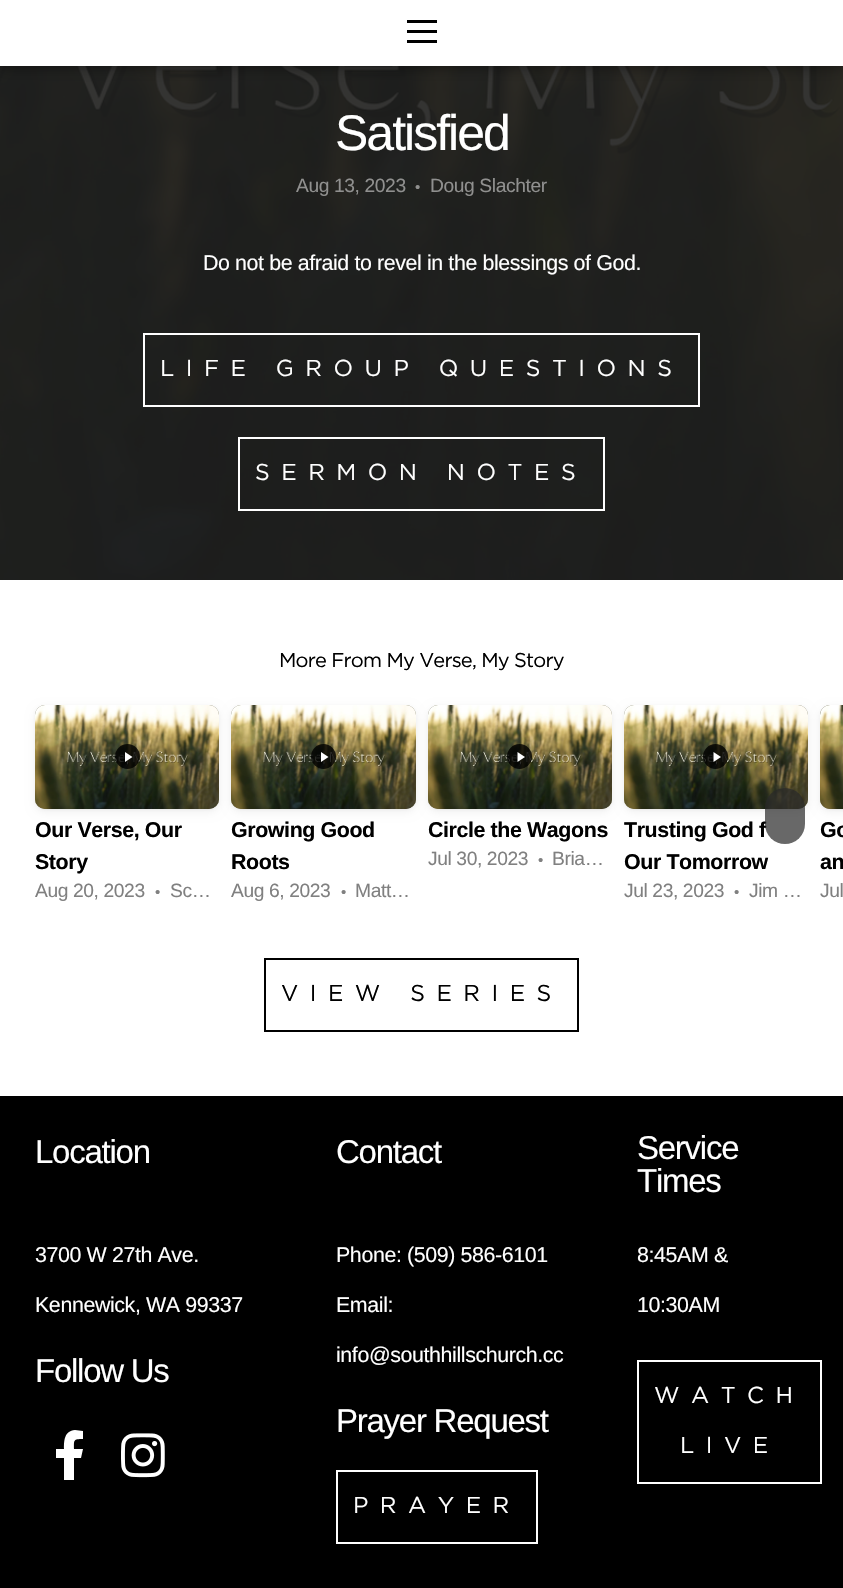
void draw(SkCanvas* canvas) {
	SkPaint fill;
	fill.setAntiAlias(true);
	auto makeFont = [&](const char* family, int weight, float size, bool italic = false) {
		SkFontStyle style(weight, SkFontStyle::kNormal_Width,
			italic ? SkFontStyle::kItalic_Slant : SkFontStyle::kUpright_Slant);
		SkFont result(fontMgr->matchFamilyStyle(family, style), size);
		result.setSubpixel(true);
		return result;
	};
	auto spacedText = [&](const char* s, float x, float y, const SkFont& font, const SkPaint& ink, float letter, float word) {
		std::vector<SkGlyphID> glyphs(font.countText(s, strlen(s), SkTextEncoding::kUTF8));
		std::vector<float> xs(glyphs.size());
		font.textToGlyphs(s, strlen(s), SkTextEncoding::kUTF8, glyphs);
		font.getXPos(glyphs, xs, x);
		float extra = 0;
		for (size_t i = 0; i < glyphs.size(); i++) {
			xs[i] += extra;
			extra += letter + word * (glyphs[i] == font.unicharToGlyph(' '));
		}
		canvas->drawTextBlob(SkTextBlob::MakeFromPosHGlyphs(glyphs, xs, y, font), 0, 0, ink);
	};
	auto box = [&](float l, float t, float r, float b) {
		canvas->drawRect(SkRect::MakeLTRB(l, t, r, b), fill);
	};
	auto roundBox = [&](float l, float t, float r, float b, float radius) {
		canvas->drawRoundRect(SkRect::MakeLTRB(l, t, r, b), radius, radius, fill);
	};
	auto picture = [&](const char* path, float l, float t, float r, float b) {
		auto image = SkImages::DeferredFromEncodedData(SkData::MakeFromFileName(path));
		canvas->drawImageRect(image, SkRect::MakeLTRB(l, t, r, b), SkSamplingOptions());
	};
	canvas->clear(0xFFFFFFFF);
	picture("image0.png", 0, 66, 843, 580);
	fill.setColor(0x80000000);
	fill.setMaskFilter(SkMaskFilter::MakeBlur(kNormal_SkBlurStyle, 7.5f));
	canvas->drawRect(SkRect::MakeLTRB(0, 0, 843, 66), fill);
	fill.setMaskFilter(nullptr);
	fill.setColor(0xFFFFFFFF);
	box(0, 0, 843, 66);
	fill.setColor(0xFF000000);
	box(407, 20, 437, 23);
	box(407, 30, 437, 33);
	box(407, 40, 437, 43);
	fill.setStyle(SkPaint::kStroke_Style);
	fill.setStrokeWidth(2);
	fill.setColor(0xFFFFFFFF);
	canvas->drawRect(SkRect::MakeLTRB(144, 334, 699, 406), fill);
	canvas->drawRect(SkRect::MakeLTRB(239, 438, 604, 510), fill);
	fill.setStyle(SkPaint::kFill_Style);
	fill.setColor(0x0A000000);
	fill.setMaskFilter(SkMaskFilter::MakeBlur(kNormal_SkBlurStyle, 1));
	canvas->drawRoundRect(SkRect::MakeLTRB(35, 706, 219, 810), 10, 10, fill);
	fill.setMaskFilter(nullptr);
	fill.setColor(0x0F000000);
	fill.setMaskFilter(SkMaskFilter::MakeBlur(kNormal_SkBlurStyle, 5));
	canvas->drawRoundRect(SkRect::MakeLTRB(35, 708, 219, 812), 10, 10, fill);
	fill.setMaskFilter(nullptr);
	fill.setColor(0xFF706E51);
	roundBox(35, 705, 219, 809, 10);
	picture("image1.png", 35, 705, 219, 809);
	fill.setColor(0xCC000000);
	canvas->drawCircle(127.5f, 756.5f, 12.5f, fill);
	fill.setColor(0xFFFFFFFF);
	canvas->drawPath(SkPathBuilder().moveTo(125, 762).lineTo(125, 752).lineTo(132.5f, 757).close().detach(), fill);
	fill.setColor(0x0A000000);
	fill.setMaskFilter(SkMaskFilter::MakeBlur(kNormal_SkBlurStyle, 1));
	canvas->drawRoundRect(SkRect::MakeLTRB(231, 706, 416, 810), 10, 10, fill);
	fill.setMaskFilter(nullptr);
	fill.setColor(0x0F000000);
	fill.setMaskFilter(SkMaskFilter::MakeBlur(kNormal_SkBlurStyle, 5));
	canvas->drawRoundRect(SkRect::MakeLTRB(231, 708, 416, 812), 10, 10, fill);
	fill.setMaskFilter(nullptr);
	fill.setColor(0xFF706E51);
	roundBox(231, 705, 416, 809, 10);
	picture("image2.png", 231, 705, 416, 809);
	fill.setColor(0xCC000000);
	canvas->drawCircle(323.5f, 756.5f, 12.5f, fill);
	fill.setColor(0xFFFFFFFF);
	canvas->drawPath(SkPathBuilder().moveTo(321, 762).lineTo(321, 752).lineTo(328.5f, 757).close().detach(), fill);
	fill.setColor(0x0A000000);
	fill.setMaskFilter(SkMaskFilter::MakeBlur(kNormal_SkBlurStyle, 1));
	canvas->drawRoundRect(SkRect::MakeLTRB(428, 706, 612, 810), 10, 10, fill);
	fill.setMaskFilter(nullptr);
	fill.setColor(0x0F000000);
	fill.setMaskFilter(SkMaskFilter::MakeBlur(kNormal_SkBlurStyle, 5));
	canvas->drawRoundRect(SkRect::MakeLTRB(428, 708, 612, 812), 10, 10, fill);
	fill.setMaskFilter(nullptr);
	fill.setColor(0xFF706E51);
	roundBox(428, 705, 612, 809, 10);
	picture("image3.png", 428, 705, 612, 809);
	fill.setColor(0xCC000000);
	canvas->drawCircle(519.5f, 756.5f, 12.5f, fill);
	fill.setColor(0xFFFFFFFF);
	canvas->drawPath(SkPathBuilder().moveTo(517.5f, 762).lineTo(517.5f, 752).lineTo(525, 757).close().detach(), fill);
	fill.setColor(0x0A000000);
	fill.setMaskFilter(SkMaskFilter::MakeBlur(kNormal_SkBlurStyle, 1));
	canvas->drawRoundRect(SkRect::MakeLTRB(624, 706, 808, 810), 10, 10, fill);
	fill.setMaskFilter(nullptr);
	fill.setColor(0x0F000000);
	fill.setMaskFilter(SkMaskFilter::MakeBlur(kNormal_SkBlurStyle, 5));
	canvas->drawRoundRect(SkRect::MakeLTRB(624, 708, 808, 812), 10, 10, fill);
	fill.setMaskFilter(nullptr);
	fill.setColor(0xFF706E51);
	roundBox(624, 705, 808, 809, 10);
	picture("image3.png", 624, 705, 808, 809);
	fill.setColor(0xCC000000);
	canvas->drawCircle(715.5f, 756.5f, 12.5f, fill);
	fill.setColor(0xFFFFFFFF);
	canvas->drawPath(SkPathBuilder().moveTo(713.5f, 762).lineTo(713.5f, 752).lineTo(721, 757).close().detach(), fill);
	fill.setColor(0x0A000000);
	fill.setMaskFilter(SkMaskFilter::MakeBlur(kNormal_SkBlurStyle, 1));
	canvas->drawRoundRect(SkRect::MakeLTRB(820, 706, 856, 810), 10, 10, fill);
	fill.setMaskFilter(nullptr);
	fill.setColor(0x0F000000);
	fill.setMaskFilter(SkMaskFilter::MakeBlur(kNormal_SkBlurStyle, 5));
	canvas->drawRoundRect(SkRect::MakeLTRB(820, 708, 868, 812), 10, 10, fill);
	fill.setMaskFilter(nullptr);
	fill.setColor(0xFF706E51);
	canvas->drawPath(SkPathBuilder().moveTo(830, 705).lineTo(843, 705).lineTo(843, 809).lineTo(830, 809).cubicTo(824.5f, 809, 820, 804.5f, 820, 799).lineTo(820, 715).cubicTo(820, 709.5f, 824.5f, 705, 830, 705).close().detach(), fill);
	picture("image4.png", 820, 705, 843, 809);
	fill.setStyle(SkPaint::kStroke_Style);
	fill.setColor(0xFF000000);
	canvas->drawRect(SkRect::MakeLTRB(265, 959, 578, 1031), fill);
	fill.setStyle(SkPaint::kFill_Style);
	box(0, 1096, 843, 1588);
	fill.setColor(0xFFFFFFFF);
	canvas->drawPath(SkPathBuilder().moveTo(81, 1458).lineTo(83, 1449).lineTo(74, 1449).cubicTo(74, 1440, 73, 1439, 83, 1439).lineTo(83, 1431).lineTo(75, 1430).cubicTo(64, 1431, 64, 1441, 64, 1449).lineTo(56, 1449).lineTo(56, 1458).lineTo(64, 1458).lineTo(64, 1480).lineTo(74, 1480).lineTo(74, 1458).close().detach(), fill);
	picture("image5.png", 121, 1433, 165, 1478);
	fill.setStyle(SkPaint::kStroke_Style);
	canvas->drawRect(SkRect::MakeLTRB(337, 1471, 537, 1543), fill);
	canvas->drawRect(SkRect::MakeLTRB(638, 1361, 821, 1483), fill);
	auto font1 = makeFont("Liberation Sans", 400, 50);
	fill.setStyle(SkPaint::kFill_Style);
	spacedText("Satisfied", 335, 150, font1, fill, -2, 0);
	auto font2 = makeFont("Liberation Sans", 400, 19.25f);
	fill.setColor(0xFF90908F);
	spacedText("Aug 13, 2023", 296, 192, font2, fill, -0.4f, 0);
	auto font3 = makeFont("Liberation Sans", 400, 15);
	spacedText("•", 415, 192, font3, fill, -0.4f, 0);
	canvas->save();
	canvas->clipRect(SkRect::MakeLTRB(296, 173, 547, 199));
	spacedText("Doug Slachter", 430, 192, font2, fill, -0.4f, 0);
	canvas->restore();
	auto font4 = makeFont("Liberation Sans", 400, 21.4f);
	fill.setColor(0xFFFFFFFF);
	spacedText("Do not be afraid to revel in the blessings of God.", 203, 270, font4, fill, -0.4f, 0);
	auto font5 = makeFont("Gotham", 400, 23);
	spacedText("LIFE GROUP QUESTIONS", 160, 376, font5, fill, 11.5f, 0);
	spacedText("SERMON NOTES", 255, 480, font5, fill, 11.5f, 0);
	auto font6 = makeFont("Gotham", 400, 20);
	fill.setColor(0xFF000000);
	spacedText("More From My Verse, My Story", 279, 667, font6, fill, -0.8f, 0);
	auto font7 = makeFont("Liberation Sans", 700, 21.4f);
	spacedText("Our Verse, Our", 35, 837, font7, fill, -0.4f, 0);
	spacedText("Story", 35, 869, font7, fill, -0.4f, 0);
	fill.setColor(0xFF808080);
	spacedText("Aug 20, 2023", 35, 897, font2, fill, -0.4f, 0);
	spacedText("•", 155, 897, font3, fill, -0.4f, 0);
	spacedText("Sc…", 170, 897, font2, fill, -0.4f, 0);
	fill.setColor(0xFF000000);
	spacedText("Growing Good", 231, 837, font7, fill, -0.4f, 0);
	spacedText("Roots", 231, 869, font7, fill, -0.4f, 0);
	fill.setColor(0xFF808080);
	spacedText("Aug 6, 2023", 231, 897, font2, fill, -0.4f, 0);
	spacedText("•", 341, 897, font3, fill, -0.4f, 0);
	spacedText("Matt…", 355, 897, font2, fill, -0.4f, 0);
	fill.setColor(0xFF000000);
	spacedText("Circle the Wagons", 428, 837, font7, fill, -0.4f, 0);
	fill.setColor(0xFF808080);
	spacedText("Jul 30, 2023", 428, 865, font2, fill, -0.4f, 0);
	spacedText("•", 538, 865, font3, fill, -0.4f, 0);
	spacedText("Bria…", 552, 865, font2, fill, -0.4f, 0);
	fill.setColor(0xFF000000);
	spacedText("Trusting God f", 624, 837, font7, fill, -0.4f, 0);
	fill.setColor(0xB3282828);
	roundBox(765, 788, 805, 844, 20);
	fill.setColor(0xFF000000);
	spacedText("Our Tomorrow", 624, 869, font7, fill, -0.4f, 0);
	fill.setColor(0xFF808080);
	spacedText("Jul 23, 2023", 624, 897, font2, fill, -0.4f, 0);
	spacedText("•", 734, 897, font3, fill, -0.4f, 0);
	spacedText("Jim …", 749, 897, font2, fill, -0.4f, 0);
	fill.setColor(0xFF000000);
	spacedText("Go", 820, 837, font7, fill, -0.4f, 0);
	spacedText("an", 820, 869, font7, fill, -0.4f, 0);
	fill.setColor(0xFF808080);
	spacedText("Jul", 820, 897, font2, fill, -0.4f, 0);
	fill.setColor(0xFF000000);
	spacedText("VIEW SERIES", 281, 1001, font5, fill, 11.5f, 0);
	auto font8 = makeFont("Liberation Sans", 400, 33);
	fill.setColor(0xFFFFFFFF);
	spacedText("Location", 35, 1163, font8, fill, -1.25f, 0);
	spacedText("Contact", 336, 1163, font8, fill, -1.25f, 0);
	spacedText("Service", 637, 1159, font8, fill, -1.25f, 0);
	spacedText("Times", 637, 1192, font8, fill, -1.25f, 0);
	spacedText("3700 W 27th Ave.", 35, 1262, font4, fill, -0.4f, 0);
	spacedText("Kennewick, WA 99337", 35, 1312, font4, fill, -0.4f, 0);
	spacedText("Follow Us", 35, 1382, font8, fill, -1.25f, 0);
	spacedText("Phone: (509) 586-6101", 336, 1262, font4, fill, -0.4f, 0);
	spacedText("Email:", 336, 1312, font4, fill, -0.4f, 0);
	spacedText("info@southhillschurch.cc", 336, 1362, font4, fill, -0.4f, 0);
	spacedText("Prayer Request", 336, 1432, font8, fill, -1.25f, 0);
	spacedText("PRAYER", 353, 1513, font5, fill, 11.5f, 0);
	spacedText("8:45AM &", 637, 1262, font4, fill, -0.4f, 0);
	spacedText("10:30AM", 637, 1312, font4, fill, -0.4f, 0);
	spacedText("WATCH", 654, 1403, font5, fill, 11.5f, 0);
	spacedText("LIVE", 680, 1453, font5, fill, 11.5f, 0);
}
